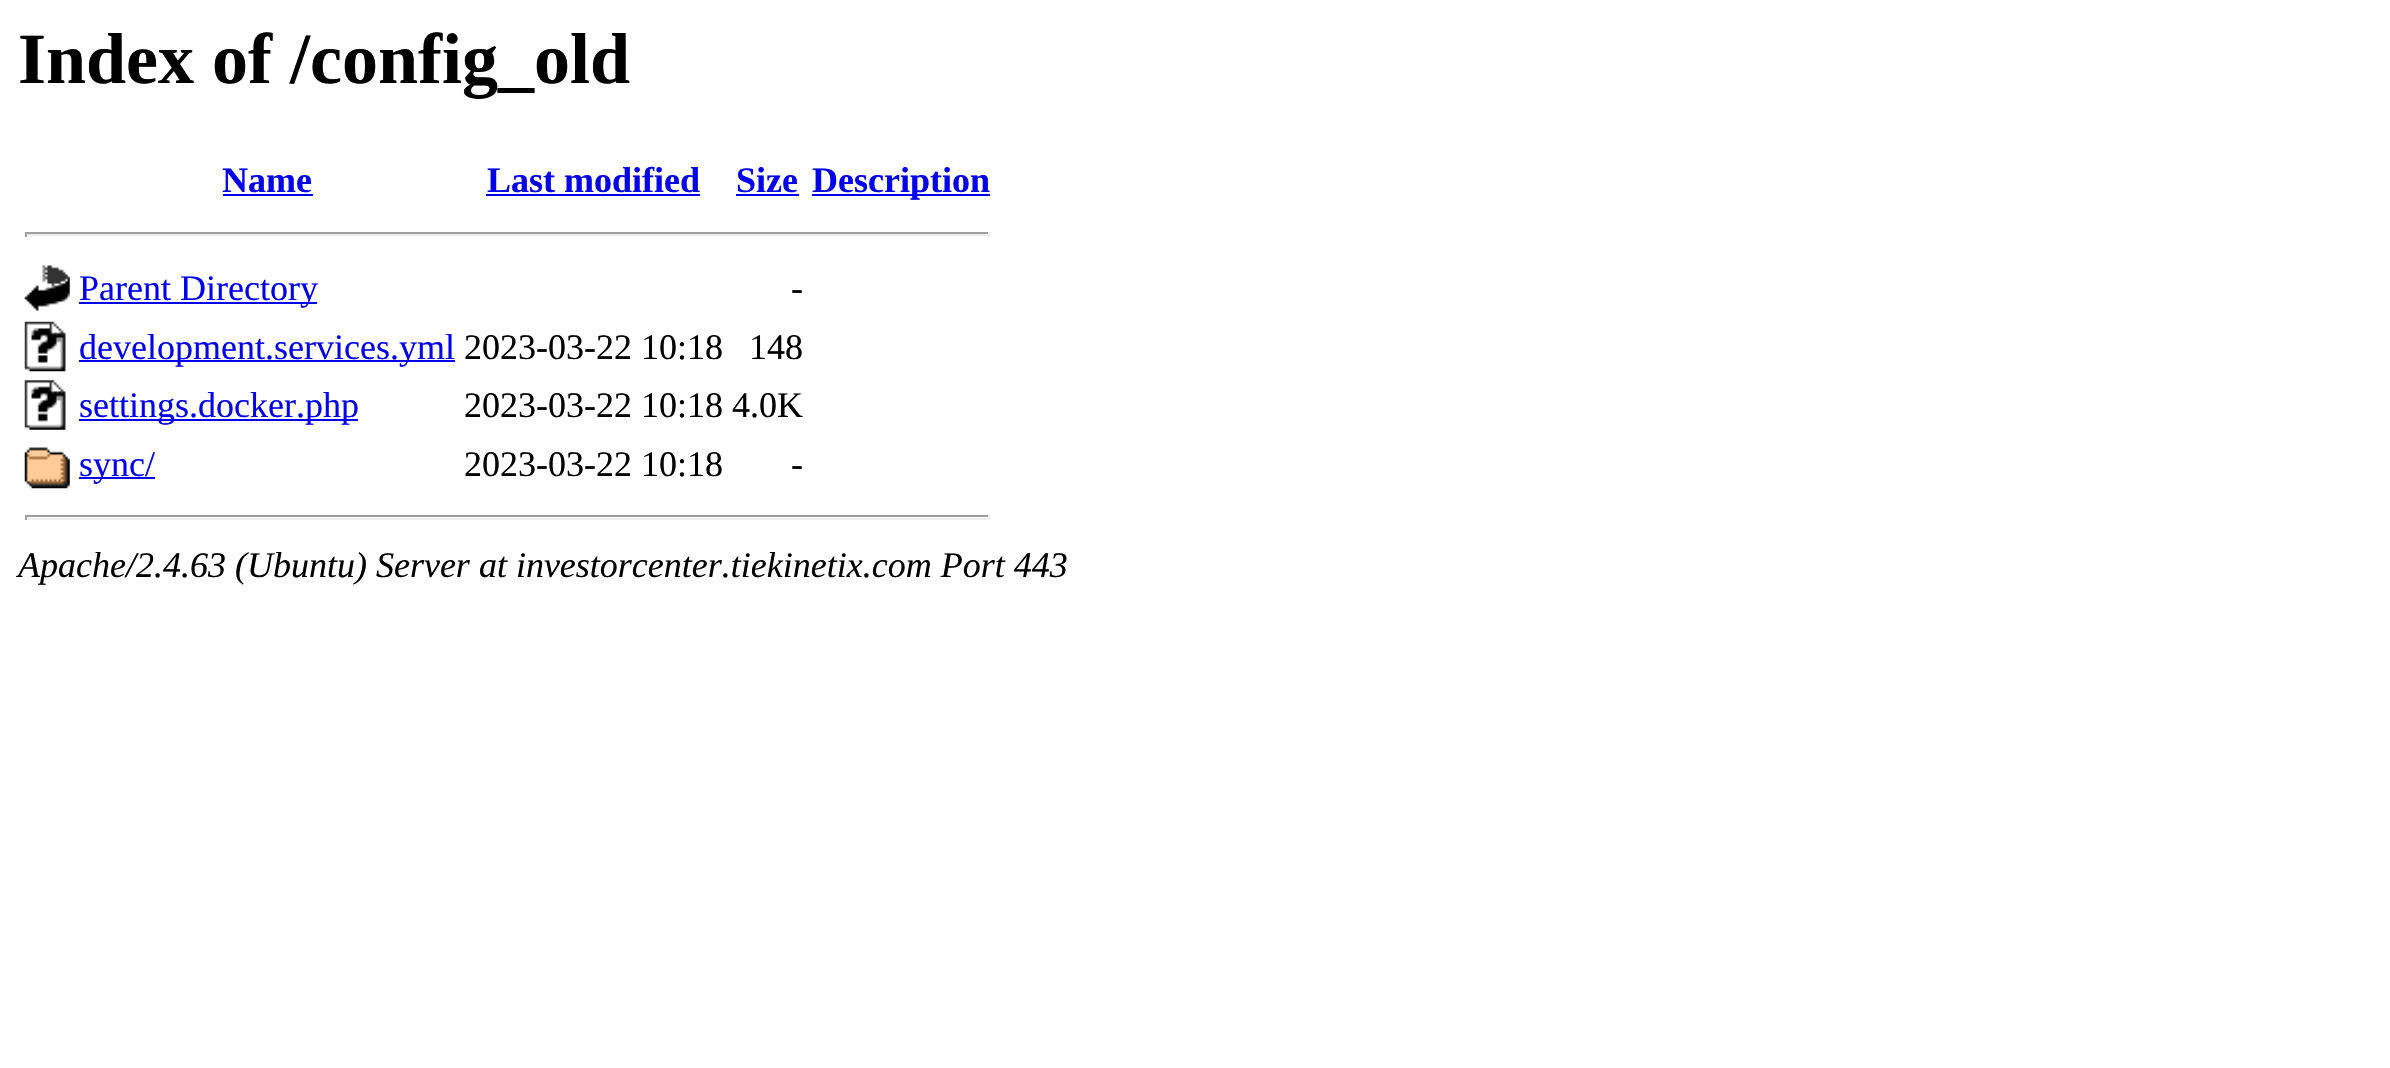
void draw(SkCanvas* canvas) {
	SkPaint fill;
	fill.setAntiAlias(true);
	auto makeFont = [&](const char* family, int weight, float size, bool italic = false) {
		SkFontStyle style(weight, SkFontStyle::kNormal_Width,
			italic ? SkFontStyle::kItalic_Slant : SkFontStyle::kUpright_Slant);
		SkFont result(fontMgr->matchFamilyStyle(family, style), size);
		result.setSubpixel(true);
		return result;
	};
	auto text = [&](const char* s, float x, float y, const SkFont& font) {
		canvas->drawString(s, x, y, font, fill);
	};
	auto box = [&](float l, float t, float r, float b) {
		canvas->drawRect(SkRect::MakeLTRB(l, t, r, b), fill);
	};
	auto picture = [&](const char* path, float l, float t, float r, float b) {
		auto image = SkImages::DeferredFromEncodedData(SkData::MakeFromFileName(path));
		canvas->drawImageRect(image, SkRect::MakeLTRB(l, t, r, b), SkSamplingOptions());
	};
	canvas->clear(0xFFFFFFFF);
	fill.setColor(0xFF0000EE);
	box(223, 194, 313, 196);
	box(486, 194, 700, 196);
	box(736, 194, 799, 196);
	box(812, 194, 990, 196);
	fill.setColor(0xFF9F9F9F);
	box(25, 232, 990, 234);
	fill.setColor(0xFFEEEEEE);
	box(988, 232, 990, 237);
	box(25, 234, 990, 236);
	fill.setColor(0xFF9F9F9F);
	box(25, 232, 27, 237);
	picture("image0.png", 24, 265, 70, 312);
	fill.setColor(0xFF0000EE);
	box(79, 302, 317, 304);
	picture("image1.png", 24, 321, 66, 372);
	box(79, 360, 455, 362);
	picture("image2.png", 24, 380, 66, 430);
	box(79, 419, 358, 421);
	picture("image3.png", 24, 447, 70, 489);
	box(79, 477, 155, 479);
	fill.setColor(0xFF9F9F9F);
	box(25, 515, 990, 517);
	fill.setColor(0xFFEEEEEE);
	box(988, 515, 990, 520);
	box(25, 518, 990, 520);
	fill.setColor(0xFF9F9F9F);
	box(25, 515, 27, 520);
	auto font1 = makeFont("Liberation Serif", 700, 72);
	fill.setColor(0xFF000000);
	text("Index of /config_old", 18, 83, font1);
	auto font2 = makeFont("Liberation Serif", 700, 36);
	fill.setColor(0xFF0000EE);
	text("Name", 222, 192, font2);
	text("Last modified", 487, 192, font2);
	text("Size", 736, 192, font2);
	text("Description", 812, 192, font2);
	auto font3 = makeFont("Liberation Serif", 400, 36);
	text("Parent Directory", 79, 300, font3);
	fill.setColor(0xFF000000);
	text("-", 791, 300, font3);
	fill.setColor(0xFF0000EE);
	text("development.services.yml", 79, 359, font3);
	fill.setColor(0xFF000000);
	text("2023-03-22 10:18", 464, 359, font3);
	text("148", 749, 359, font3);
	fill.setColor(0xFF0000EE);
	text("settings.docker.php", 79, 417, font3);
	fill.setColor(0xFF000000);
	text("2023-03-22 10:18 4.0K", 464, 417, font3);
	fill.setColor(0xFF0000EE);
	text("sync/", 79, 476, font3);
	fill.setColor(0xFF000000);
	text("2023-03-22 10:18", 464, 476, font3);
	text("-", 791, 476, font3);
	auto font4 = makeFont("Liberation Serif", 400, 36, true);
	text("Apache/2.4.63 (Ubuntu) Server at investorcenter.tiekinetix.com Port 443", 18, 577, font4);
}
